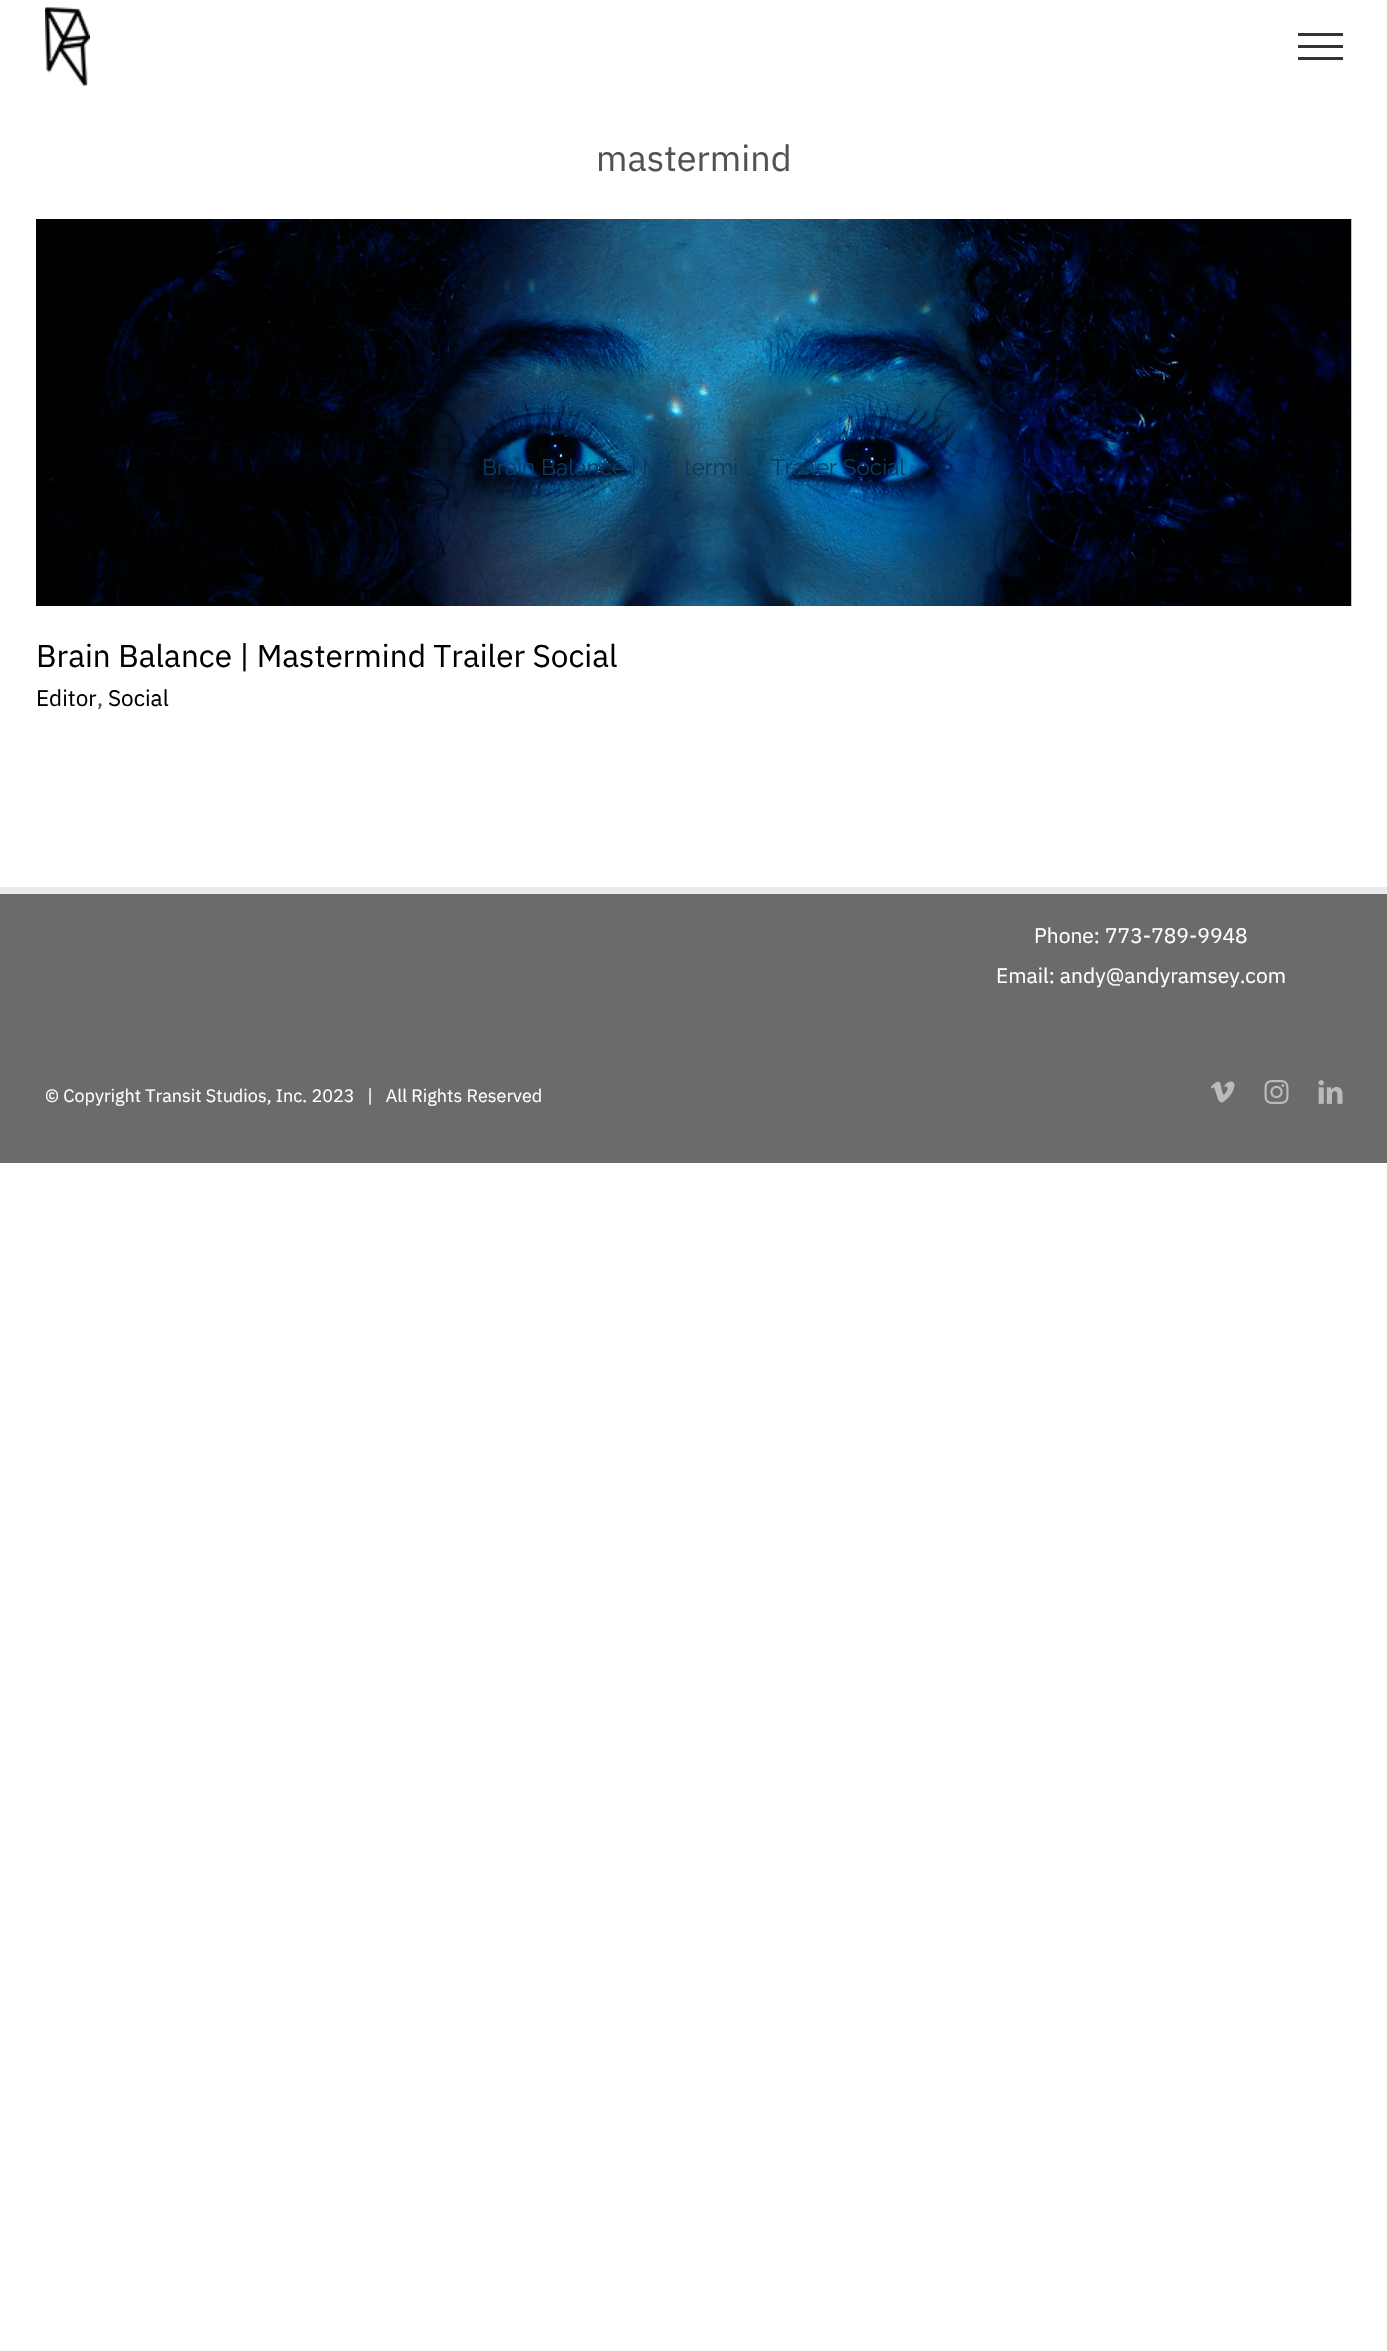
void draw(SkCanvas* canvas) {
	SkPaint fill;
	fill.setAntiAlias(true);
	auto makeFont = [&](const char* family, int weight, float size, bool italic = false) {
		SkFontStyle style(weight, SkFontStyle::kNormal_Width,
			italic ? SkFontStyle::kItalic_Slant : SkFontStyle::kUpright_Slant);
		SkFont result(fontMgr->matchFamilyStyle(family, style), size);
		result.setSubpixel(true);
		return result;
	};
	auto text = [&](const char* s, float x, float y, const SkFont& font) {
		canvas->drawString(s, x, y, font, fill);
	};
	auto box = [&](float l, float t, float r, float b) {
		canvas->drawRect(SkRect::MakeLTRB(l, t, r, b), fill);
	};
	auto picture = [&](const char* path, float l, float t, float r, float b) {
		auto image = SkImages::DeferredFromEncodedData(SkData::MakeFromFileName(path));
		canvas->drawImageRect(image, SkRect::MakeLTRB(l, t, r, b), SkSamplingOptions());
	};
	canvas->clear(0xFFFFFFFF);
	picture("image0.png", 45, 7, 90, 86);
	fill.setColor(0xFF333333);
	box(1298, 33, 1343, 36);
	box(1298, 45, 1343, 48);
	box(1298, 57, 1343, 60);
	picture("image1.png", 36, 219, 1352, 606);
	fill.setColor(0xFF6B6B6B);
	box(0, 894, 1387, 1163);
	fill.setColor(0xFFE9EAEE);
	box(0, 887, 1387, 894);
	picture("image2.png", 1211, 1081, 1235, 1103);
	picture("image3.png", 1264, 1080, 1289, 1104);
	picture("image4.png", 1318, 1080, 1343, 1104);
	auto font1 = makeFont("IBM Plex Sans", 400, 36);
	fill.setColor(0xFF525252);
	text("mastermind", 596, 171, font1);
	auto font2 = makeFont("Raleway", 100, 22.5f);
	fill.setColor(0xFF0A3A60);
	text("Brain Balance | M", 482, 475, font2);
	text("termi", 684, 475, font2);
	text("Trailer Social", 771, 475, font2);
	auto font3 = makeFont("IBM Plex Sans", 400, 31.5f);
	fill.setColor(0xFF000000);
	text("Brain Balance | Mastermind Trailer Social", 36, 667, font3);
	auto font4 = makeFont("IBM Plex Sans", 400, 22.5f);
	text("Editor", 36, 706, font4);
	fill.setColor(0xFF4C4C4C);
	text(",", 97, 706, font4);
	fill.setColor(0xFF000000);
	text("Social", 108, 706, font4);
	auto font5 = makeFont("IBM Plex Sans", 400, 21);
	fill.setColor(0xFFFFFFFF);
	text("Phone: 773-789-9948", 1034, 943, font5);
	text("Email: andy@andyramsey.com", 996, 983, font5);
	auto font6 = makeFont("IBM Plex Sans", 400, 18);
	text("© Copyright Transit Studios, Inc. 2023   |   All Rights Reserved", 45, 1102, font6);
}
